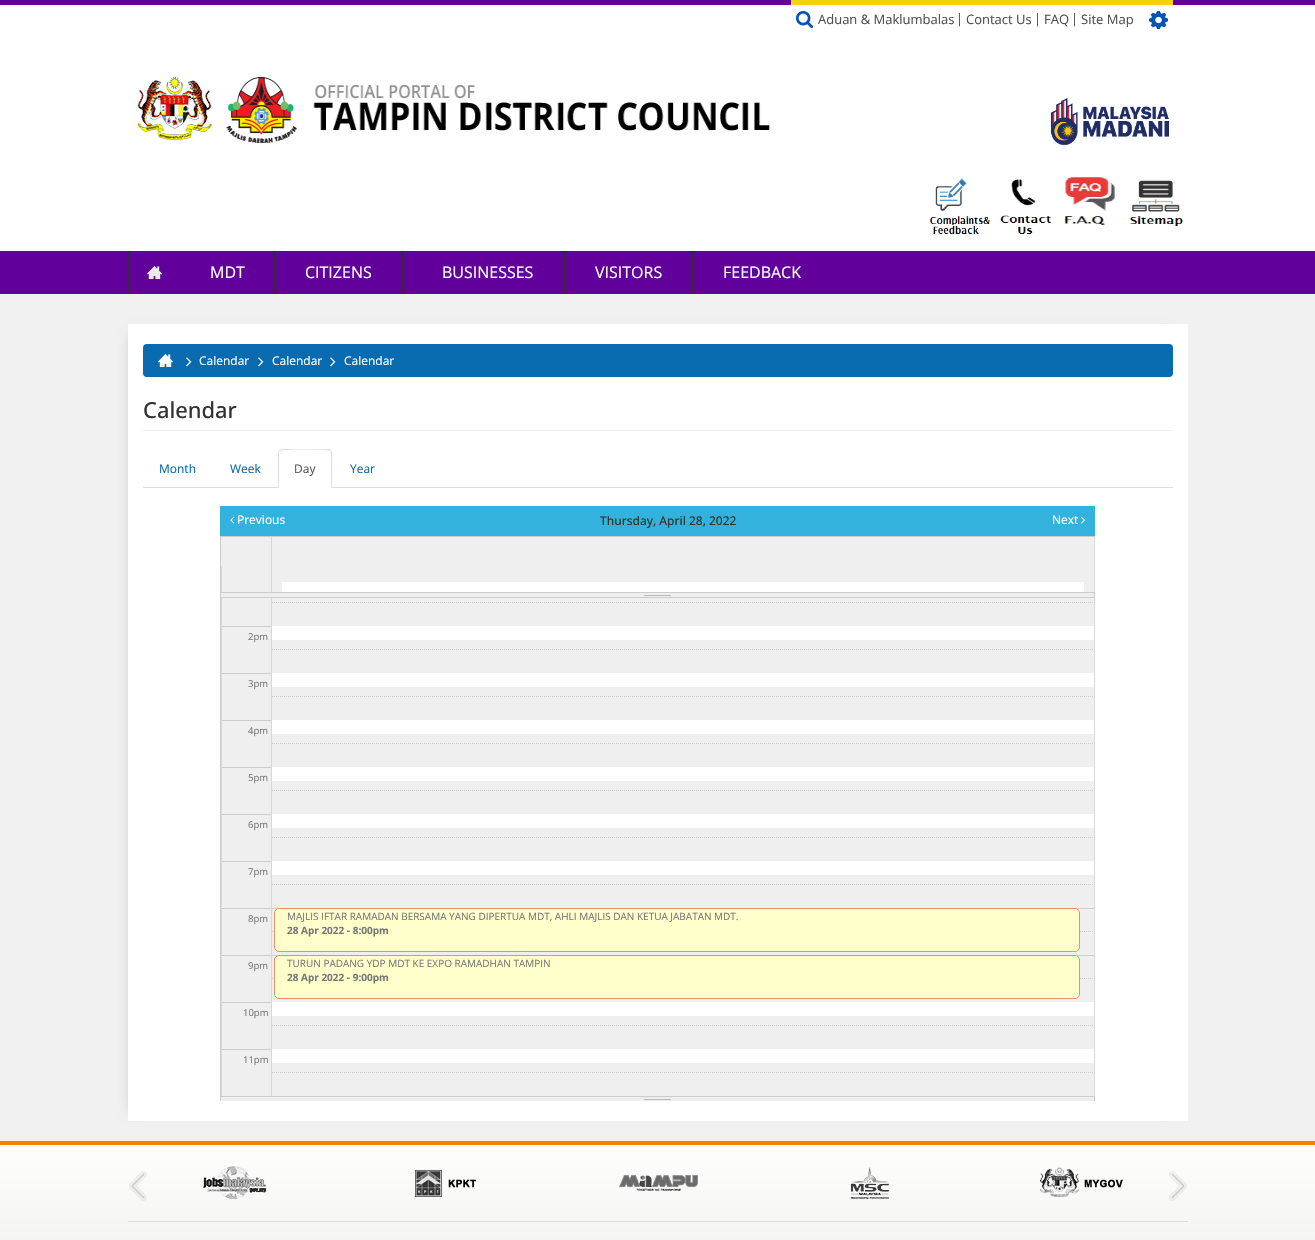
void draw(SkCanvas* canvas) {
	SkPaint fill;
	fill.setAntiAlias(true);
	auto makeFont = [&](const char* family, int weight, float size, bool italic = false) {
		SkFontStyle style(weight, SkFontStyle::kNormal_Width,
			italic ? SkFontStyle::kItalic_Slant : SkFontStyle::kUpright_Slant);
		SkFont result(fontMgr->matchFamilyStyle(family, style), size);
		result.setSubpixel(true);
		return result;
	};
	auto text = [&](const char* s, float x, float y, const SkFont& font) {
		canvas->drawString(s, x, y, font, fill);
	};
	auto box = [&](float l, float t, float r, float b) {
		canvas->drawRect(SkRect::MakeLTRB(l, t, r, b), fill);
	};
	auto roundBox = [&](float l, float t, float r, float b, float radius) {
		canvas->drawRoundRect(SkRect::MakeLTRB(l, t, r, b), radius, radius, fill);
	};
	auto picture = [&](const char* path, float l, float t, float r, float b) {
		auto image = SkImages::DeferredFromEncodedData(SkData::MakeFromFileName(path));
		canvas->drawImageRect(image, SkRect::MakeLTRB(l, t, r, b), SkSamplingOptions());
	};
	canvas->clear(0xFFF1F1F1);
	fill.setColor(0xFFFFFFFF);
	box(0, 5, 1315, 251);
	fill.setColor(0xFF61009B);
	box(0, 0, 1315, 5);
	fill.setColor(0xFFF3D407);
	box(791, 0, 1173, 5);
	picture("image0.png", 1149, 11, 1168, 29);
	picture("image1.png", 796, 11, 813, 28);
	picture("image2.png", 137, 76, 770, 143);
	picture("image3.png", 1050, 98, 1169, 146);
	picture("image4.png", 930, 178, 990, 234);
	picture("image5.png", 1000, 179, 1052, 234);
	picture("image6.png", 1064, 177, 1115, 225);
	picture("image7.png", 1129, 180, 1183, 226);
	fill.setColor(0xFF61009B);
	box(0, 251, 1315, 294);
	fill.setColor(0xFF2E2E2E);
	box(179, 251, 180, 294);
	box(128, 251, 129, 294);
	picture("image8.png", 147, 266, 162, 279);
	box(274, 251, 275, 294);
	box(402, 251, 403, 294);
	box(564, 251, 565, 294);
	box(692, 251, 693, 294);
	box(831, 251, 832, 294);
	fill.setColor(0xFFFFFFFF);
	box(128, 324, 1188, 1121);
	canvas->save();
	canvas->clipPath(SkPathBuilder(SkPathFillType::kEvenOdd).moveTo(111, 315).lineTo(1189, 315).lineTo(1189, 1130).lineTo(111, 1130).close().moveTo(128, 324).lineTo(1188, 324).lineTo(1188, 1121).lineTo(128, 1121).close().detach(), true);
	fill.setColor(0xFFCACACA);
	fill.setMaskFilter(SkMaskFilter::MakeBlur(kNormal_SkBlurStyle, 6));
	canvas->drawRect(SkRect::MakeLTRB(130, 334, 1170, 1111), fill);
	fill.setMaskFilter(nullptr);
	canvas->restore();
	fill.setColor(0xFF086AAF);
	roundBox(143, 344, 1173, 377, 4);
	picture("image9.png", 158, 354, 173, 367);
	picture("image10.png", 186, 357, 192, 367);
	picture("image10.png", 258, 357, 264, 367);
	picture("image10.png", 330, 357, 336, 367);
	fill.setColor(0xFFEEEEEE);
	box(143, 430, 1173, 431);
	fill.setColor(0xFFDDDDDD);
	box(143, 487, 1173, 488);
	fill.setColor(0xFFFFFFFF);
	canvas->drawPath(SkPathBuilder().moveTo(282, 449).lineTo(328, 449).cubicTo(330, 449, 332, 451, 332, 453).lineTo(332, 488).lineTo(278, 488).lineTo(278, 453).cubicTo(278, 451, 280, 449, 282, 449).close().detach(), fill);
	fill.setColor(0xFFDDDDDD);
	canvas->drawPath(SkPathBuilder().moveTo(282, 449).lineTo(279, 450).lineTo(280, 451).cubicTo(281, 449, 329, 449, 330, 451).lineTo(331, 450).lineTo(328, 449).close().detach(), fill);
	canvas->drawPath(SkPathBuilder().moveTo(332, 488).lineTo(332, 453).cubicTo(332, 452, 331.5f, 451, 331, 450).lineTo(330, 451).cubicTo(331, 451, 331, 452, 331, 453).lineTo(331, 487).close().moveTo(278, 488).lineTo(279, 487).lineTo(279, 453).cubicTo(279, 452, 279, 451, 280, 451).lineTo(279, 450).cubicTo(278.5f, 451, 278, 452, 278, 453).close().detach(), fill);
	fill.setColor(0xFF34B2DE);
	box(220, 506, 1095, 536);
	picture("image11.png", 230, 516, 235, 524);
	picture("image12.png", 1081, 516, 1085, 524);
	fill.setColor(0xFFCCCCCC);
	box(220, 536, 1095, 537);
	box(220, 592, 1095, 593);
	box(220, 536, 221, 593);
	fill.setColor(0xFFEFEFEF);
	box(221, 537, 271, 567);
	box(272, 537, 1094, 592);
	box(222, 567, 271, 592);
	fill.setColor(0xFFD8D8D8);
	box(221, 566, 222, 592);
	box(1094, 537, 1095, 592);
	box(271, 537, 272, 592);
	fill.setColor(0xFFFFFFFF);
	box(282, 582, 1084, 592);
	fill.setColor(0xFFEEEEEE);
	box(220, 593, 1095, 597);
	fill.setColor(0xFFCCCCCC);
	box(1094, 593, 1095, 597);
	box(220, 593, 221, 597);
	fill.setColor(0xFFBBBBBB);
	box(644, 595, 671, 596);
	fill.setColor(0xFFCCCCCC);
	box(220, 597, 1095, 598);
	box(220, 1096, 1095, 1097);
	box(220, 597, 221, 1097);
	fill.setColor(0xFFEFEFEF);
	box(222, 598, 271, 1096);
	fill.setColor(0xFFD8D8D8);
	box(221, 598, 222, 1096);
	fill.setColor(0xFFCCCCCC);
	box(222, 626, 271, 627);
	box(222, 673, 271, 674);
	box(222, 720, 271, 721);
	box(222, 767, 271, 768);
	box(222, 814, 271, 815);
	box(222, 861, 271, 862);
	box(222, 908, 271, 909);
	box(222, 955, 271, 956);
	box(222, 1002, 271, 1003);
	box(222, 1049, 271, 1050);
	fill.setColor(0xFFEFEFEF);
	box(272, 598, 1094, 1096);
	fill.setColor(0xFFD8D8D8);
	box(1094, 598, 1095, 1096);
	box(271, 598, 272, 1096);
	fill.setStyle(SkPaint::kStroke_Style);
	fill.setStrokeWidth(1);
	fill.setColor(0xFFCCCCCC);
	fill.setPathEffect(SkDashPathEffect::Make({{1, 1}}, 0));
	canvas->drawPath(SkPathBuilder().moveTo(272, 602.5f).lineTo(1094, 602.5f).detach(), fill);
	fill.setPathEffect(nullptr);
	fill.setStyle(SkPaint::kFill_Style);
	fill.setColor(0xFFFFFFFF);
	box(272, 626, 1094, 640);
	fill.setStyle(SkPaint::kStroke_Style);
	fill.setColor(0xFFCCCCCC);
	fill.setPathEffect(SkDashPathEffect::Make({{1, 1}}, 0));
	canvas->drawPath(SkPathBuilder().moveTo(272, 649.5f).lineTo(1094, 649.5f).detach(), fill);
	fill.setPathEffect(nullptr);
	fill.setStyle(SkPaint::kFill_Style);
	fill.setColor(0xFFFFFFFF);
	box(272, 673, 1094, 687);
	fill.setStyle(SkPaint::kStroke_Style);
	fill.setColor(0xFFCCCCCC);
	fill.setPathEffect(SkDashPathEffect::Make({{1, 1}}, 0));
	canvas->drawPath(SkPathBuilder().moveTo(272, 696.5f).lineTo(1094, 696.5f).detach(), fill);
	fill.setPathEffect(nullptr);
	fill.setStyle(SkPaint::kFill_Style);
	fill.setColor(0xFFFFFFFF);
	box(272, 720, 1094, 734);
	fill.setStyle(SkPaint::kStroke_Style);
	fill.setColor(0xFFCCCCCC);
	fill.setPathEffect(SkDashPathEffect::Make({{1, 1}}, 0));
	canvas->drawPath(SkPathBuilder().moveTo(272, 743.5f).lineTo(1094, 743.5f).detach(), fill);
	fill.setPathEffect(nullptr);
	fill.setStyle(SkPaint::kFill_Style);
	fill.setColor(0xFFFFFFFF);
	box(272, 767, 1094, 781);
	fill.setStyle(SkPaint::kStroke_Style);
	fill.setColor(0xFFCCCCCC);
	fill.setPathEffect(SkDashPathEffect::Make({{1, 1}}, 0));
	canvas->drawPath(SkPathBuilder().moveTo(272, 790.5f).lineTo(1094, 790.5f).detach(), fill);
	fill.setPathEffect(nullptr);
	fill.setStyle(SkPaint::kFill_Style);
	fill.setColor(0xFFFFFFFF);
	box(272, 814, 1094, 828);
	fill.setStyle(SkPaint::kStroke_Style);
	fill.setColor(0xFFCCCCCC);
	fill.setPathEffect(SkDashPathEffect::Make({{1, 1}}, 0));
	canvas->drawPath(SkPathBuilder().moveTo(272, 837.5f).lineTo(1094, 837.5f).detach(), fill);
	fill.setPathEffect(nullptr);
	fill.setStyle(SkPaint::kFill_Style);
	fill.setColor(0xFFFFFFFF);
	box(272, 861, 1094, 875);
	fill.setStyle(SkPaint::kStroke_Style);
	fill.setColor(0xFFCCCCCC);
	fill.setPathEffect(SkDashPathEffect::Make({{1, 1}}, 0));
	canvas->drawPath(SkPathBuilder().moveTo(272, 884.5f).lineTo(1094, 884.5f).detach(), fill);
	fill.setPathEffect(nullptr);
	fill.setStyle(SkPaint::kFill_Style);
	box(272, 908, 1094, 909);
	fill.setStyle(SkPaint::kStroke_Style);
	fill.setPathEffect(SkDashPathEffect::Make({{1, 1}}, 0));
	canvas->drawPath(SkPathBuilder().moveTo(272, 931.5f).lineTo(1094, 931.5f).detach(), fill);
	fill.setPathEffect(nullptr);
	fill.setStyle(SkPaint::kFill_Style);
	fill.setColor(0xFFFFFFCC);
	canvas->drawRoundRect(SkRect::MakeLTRB(274.5f, 908.5f, 1079.5f, 951.5f), 4.5f, 4.5f, fill);
	fill.setStyle(SkPaint::kStroke_Style);
	fill.setColor(0xFFE39364);
	canvas->drawRoundRect(SkRect::MakeLTRB(274.5f, 908.5f, 1079.5f, 951.5f), 4.5f, 4.5f, fill);
	fill.setStyle(SkPaint::kFill_Style);
	fill.setColor(0xFFCCCCCC);
	box(272, 955, 1094, 956);
	fill.setStyle(SkPaint::kStroke_Style);
	fill.setPathEffect(SkDashPathEffect::Make({{1, 1}}, 0));
	canvas->drawPath(SkPathBuilder().moveTo(272, 978.5f).lineTo(1094, 978.5f).detach(), fill);
	fill.setPathEffect(nullptr);
	fill.setStyle(SkPaint::kFill_Style);
	fill.setColor(0xFFFFFFCC);
	canvas->drawRoundRect(SkRect::MakeLTRB(274.5f, 955.5f, 1079.5f, 998.5f), 4.5f, 4.5f, fill);
	fill.setStyle(SkPaint::kStroke_Style);
	fill.setColor(0xFFE39364);
	canvas->drawRoundRect(SkRect::MakeLTRB(274.5f, 955.5f, 1079.5f, 998.5f), 4.5f, 4.5f, fill);
	fill.setStyle(SkPaint::kFill_Style);
	fill.setColor(0xFFFFFFFF);
	box(272, 1002, 1094, 1016);
	fill.setStyle(SkPaint::kStroke_Style);
	fill.setColor(0xFFCCCCCC);
	fill.setPathEffect(SkDashPathEffect::Make({{1, 1}}, 0));
	canvas->drawPath(SkPathBuilder().moveTo(272, 1025.5f).lineTo(1094, 1025.5f).detach(), fill);
	fill.setPathEffect(nullptr);
	fill.setStyle(SkPaint::kFill_Style);
	fill.setColor(0xFFFFFFFF);
	box(272, 1049, 1094, 1063);
	fill.setStyle(SkPaint::kStroke_Style);
	fill.setColor(0xFFCCCCCC);
	fill.setPathEffect(SkDashPathEffect::Make({{1, 1}}, 0));
	canvas->drawPath(SkPathBuilder().moveTo(272, 1072.5f).lineTo(1094, 1072.5f).detach(), fill);
	fill.setPathEffect(nullptr);
	fill.setStyle(SkPaint::kFill_Style);
	fill.setColor(0xFFEEEEEE);
	box(220, 1097, 1095, 1101);
	fill.setColor(0xFFCCCCCC);
	box(1094, 1097, 1095, 1101);
	box(220, 1097, 221, 1101);
	fill.setColor(0xFFBBBBBB);
	box(644, 1099, 671, 1100);
	{
		const SkColor colors[] = {0xFFFEFEFD, 0xFFE2E0E1};
		const float stops[] = {0, 1};
		const SkPoint ends[] = {{658, 1145}, {658, 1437}};
		fill.setShader(SkGradientShader::MakeLinear(ends, colors, stops, 2, SkTileMode::kClamp));
		fill.setAlpha(255);
	}
	box(0, 1145, 1315, 1240);
	fill.setShader(nullptr);
	fill.setColor(0xFFFF7E00);
	box(0, 1141, 1315, 1145);
	fill.setColor(0xFFDDDDDD);
	box(128, 1221, 1188, 1222);
	picture("image13.png", 129, 1171, 147, 1201);
	picture("image14.png", 203, 1166, 266, 1199);
	picture("image15.png", 415, 1170, 476, 1197);
	picture("image16.png", 619, 1175, 698, 1191);
	picture("image17.png", 851, 1167, 889, 1199);
	picture("image18.png", 1040, 1167, 1123, 1197);
	picture("image19.png", 1169, 1171, 1187, 1201);
	auto font1 = makeFont("Open Sans", 400, 13);
	fill.setColor(0xFF4F4F4F);
	text("Aduan & Maklumbalas", 818, 24, font1);
	text("|", 956, 23, font1);
	text("Contact Us", 966, 24, font1);
	text("|", 1034, 23, font1);
	text("FAQ", 1044, 24, font1);
	text("|", 1071, 23, font1);
	text("Site Map", 1081, 24, font1);
	auto font2 = makeFont("Open Sans", 400, 16);
	fill.setColor(0xFFFFFFFF);
	text("MDT", 210, 278, font2);
	text("CITIZENS", 305, 278, font2);
	text("BUSINESSES", 442, 278, font2);
	text("VISITORS", 595, 278, font2);
	text("FEEDBACK", 723, 278, font2);
	auto font3 = makeFont("Open Sans", 400, 12);
	text("Calendar", 199, 365, font3);
	text("Calendar", 272, 365, font3);
	text("Calendar", 344, 365, font3);
	auto font4 = makeFont("Open Sans", 500, 22);
	fill.setColor(0xFF333333);
	text("Calendar", 143, 418, font4);
	fill.setColor(0xFF086AAF);
	text("Month", 159, 473, font3);
	text("Week", 230, 473, font3);
	fill.setColor(0xFF555555);
	text("Day", 294, 473, font3);
	fill.setColor(0xFF086AAF);
	text("Year", 350, 473, font3);
	fill.setColor(0xFFFFFFFF);
	text("Previous", 237, 524, font3);
	auto font5 = makeFont("Open Sans", 500, 12);
	fill.setColor(0xFF333333);
	text("Thursday, April 28, 2022", 600, 525, font5);
	fill.setColor(0xFFFFFFFF);
	text("Next", 1052, 524, font3);
	auto font6 = makeFont("Open Sans", 400, 9.5f);
	fill.setColor(0xFF777777);
	text("2pm", 248, 640, font6);
	text("3pm", 248, 687, font6);
	text("4pm", 248, 734, font6);
	text("5pm", 248, 781, font6);
	text("6pm", 248, 828, font6);
	text("7pm", 248, 875, font6);
	text("8pm", 248, 922, font6);
	text("9pm", 248, 969, font6);
	text("10pm", 243, 1016, font6);
	text("11pm", 243, 1063, font6);
	auto font7 = makeFont("Open Sans", 400, 10);
	text("MAJLIS IFTAR RAMADAN BERSAMA YANG DIPERTUA MDT, AHLI MAJLIS DAN KETUA JABATAN MDT.", 287, 920, font7);
	auto font8 = makeFont("Open Sans", 700, 10);
	text("28 Apr 2022 - 8:00pm", 287, 934, font8);
	text("TURUN PADANG YDP MDT KE EXPO RAMADHAN TAMPIN", 287, 967, font7);
	text("28 Apr 2022 - 9:00pm", 287, 981, font8);
}
